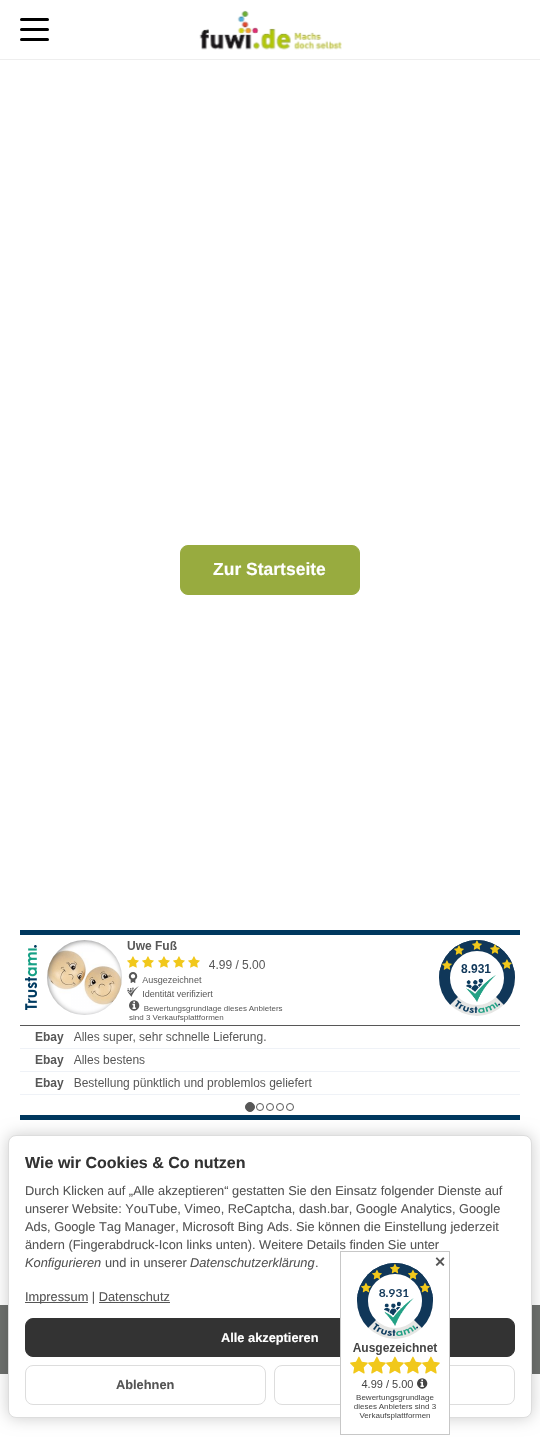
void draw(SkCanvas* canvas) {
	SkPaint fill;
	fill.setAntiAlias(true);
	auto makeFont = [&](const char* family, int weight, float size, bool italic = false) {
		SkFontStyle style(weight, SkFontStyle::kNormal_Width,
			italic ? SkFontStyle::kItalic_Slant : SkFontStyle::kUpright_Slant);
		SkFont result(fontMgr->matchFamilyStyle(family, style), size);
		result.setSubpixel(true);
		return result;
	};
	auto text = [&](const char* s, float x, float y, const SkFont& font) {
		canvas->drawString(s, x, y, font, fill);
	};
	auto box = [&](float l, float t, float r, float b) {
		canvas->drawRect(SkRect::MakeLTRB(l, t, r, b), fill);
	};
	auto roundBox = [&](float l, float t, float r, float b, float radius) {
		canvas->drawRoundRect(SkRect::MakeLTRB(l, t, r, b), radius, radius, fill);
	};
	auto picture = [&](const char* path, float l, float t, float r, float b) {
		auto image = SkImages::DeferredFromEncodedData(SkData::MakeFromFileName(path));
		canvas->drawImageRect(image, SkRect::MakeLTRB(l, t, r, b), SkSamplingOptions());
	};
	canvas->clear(0xFFFFFFFF);
	fill.setColor(0xFFEEEEEE);
	box(0, 59, 540, 60);
	fill.setColor(0xFF000000);
	roundBox(20, 18, 49, 21, 1.5f);
	roundBox(20, 28, 49, 31, 1.5f);
	roundBox(20, 38, 49, 41, 1.5f);
	picture("image0.png", 199, 10, 342, 50);
	fill.setColor(0xFF98AB3F);
	canvas->drawRoundRect(SkRect::MakeLTRB(180.5f, 545.5f, 359.5f, 594.5f), 7.5f, 7.5f, fill);
	fill.setStyle(SkPaint::kStroke_Style);
	fill.setStrokeWidth(1);
	canvas->drawRoundRect(SkRect::MakeLTRB(180.5f, 545.5f, 359.5f, 594.5f), 7.5f, 7.5f, fill);
	picture("image1.png", 20, 930, 520, 1120);
	fill.setStyle(SkPaint::kFill_Style);
	fill.setColor(0xFF6E716E);
	box(0, 1305, 540, 1374);
	fill.setColor(0x33000000);
	fill.setMaskFilter(SkMaskFilter::MakeBlur(kNormal_SkBlurStyle, 8));
	canvas->drawRoundRect(SkRect::MakeLTRB(8, 1135, 532, 1418), 8, 8, fill);
	fill.setMaskFilter(nullptr);
	fill.setColor(0xFFFFFFFF);
	canvas->drawRoundRect(SkRect::MakeLTRB(8.5f, 1135.5f, 531.5f, 1417.5f), 7.5f, 7.5f, fill);
	fill.setStyle(SkPaint::kStroke_Style);
	fill.setColor(0xFFDDDDDD);
	canvas->drawRoundRect(SkRect::MakeLTRB(8.5f, 1135.5f, 531.5f, 1417.5f), 7.5f, 7.5f, fill);
	fill.setStyle(SkPaint::kFill_Style);
	fill.setColor(0xFF555555);
	box(25, 1302, 88, 1303);
	box(99, 1302, 170, 1303);
	fill.setColor(0xFF333333);
	canvas->drawRoundRect(SkRect::MakeLTRB(25.5f, 1318.5f, 514.5f, 1356.5f), 7.5f, 7.5f, fill);
	fill.setStyle(SkPaint::kStroke_Style);
	canvas->drawRoundRect(SkRect::MakeLTRB(25.5f, 1318.5f, 514.5f, 1356.5f), 7.5f, 7.5f, fill);
	fill.setColor(0xFFDDDDDD);
	canvas->drawRoundRect(SkRect::MakeLTRB(25.5f, 1365.5f, 265.5f, 1404.5f), 7.5f, 7.5f, fill);
	canvas->drawRoundRect(SkRect::MakeLTRB(274.5f, 1365.5f, 514.5f, 1404.5f), 7.5f, 7.5f, fill);
	auto font1 = makeFont("Liberation Sans", 700, 17.5f);
	fill.setStyle(SkPaint::kFill_Style);
	fill.setColor(0xFFFFFFFF);
	text("Zur Startseite", 213, 575, font1);
	auto font2 = makeFont("Liberation Sans", 700, 16);
	fill.setColor(0xFF333333);
	text("Wie wir Cookies & Co nutzen", 25, 1168, font2);
	auto font3 = makeFont("Liberation Sans", 400, 12.8f);
	fill.setColor(0xFF555555);
	text("Durch Klicken auf „Alle akzeptieren“ gestatten Sie den Einsatz folgender Dienste auf", 25, 1195, font3);
	text("unserer Website: YouTube, Vimeo, ReCaptcha, dash.bar, Google Analytics, Google", 25, 1213, font3);
	text("Ads, Google Tag Manager, Microsoft Bing Ads. Sie können die Einstellung jederzeit", 25, 1231, font3);
	text("ändern (Fingerabdruck-Icon links unten). Weitere Details finden Sie unter", 25, 1249, font3);
	auto font4 = makeFont("Liberation Sans", 400, 12.8f, true);
	text("Konfigurieren", 25, 1267, font4);
	text("und in unserer", 105, 1267, font3);
	text("Datenschutzerklärung", 190, 1267, font4);
	text(".", 315, 1267, font3);
	text("Impressum | Datenschutz", 25, 1301, font3);
	auto font5 = makeFont("Liberation Sans", 700, 12.8f);
	fill.setColor(0xFFFFFFFF);
	text("Alle akzeptieren", 221, 1342, font5);
	fill.setColor(0xFF555555);
	text("Ablehnen", 116, 1389, font5);
	picture("image2.png", 340, 1251, 450, 1435);
	auto font6 = makeFont("DejaVu Sans", 700, 14);
	text("✕", 434, 1267, font6);
}
